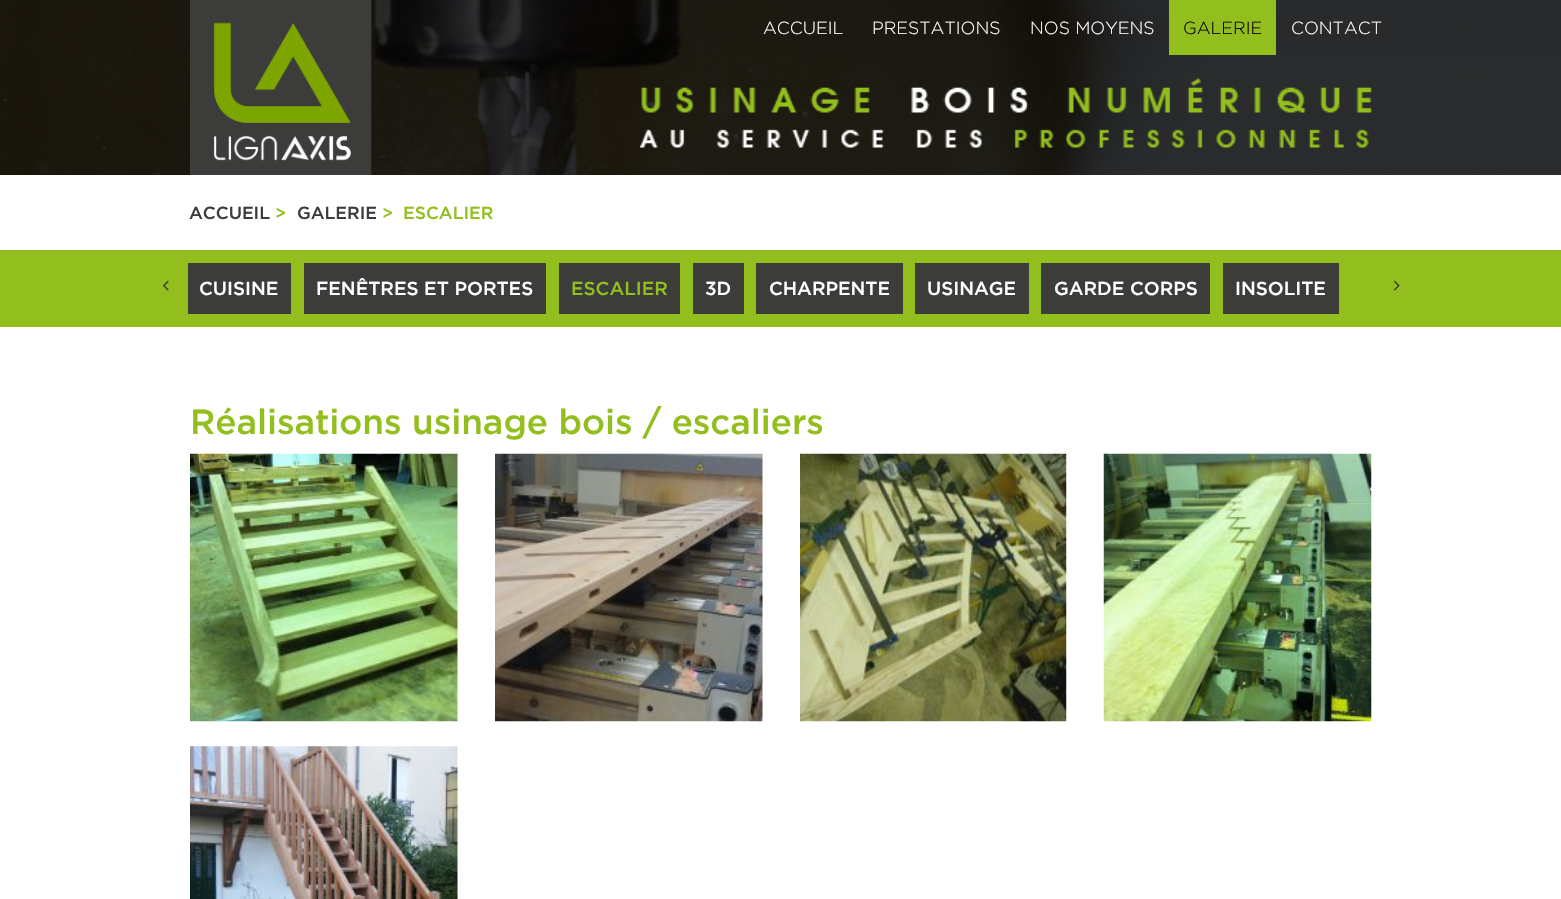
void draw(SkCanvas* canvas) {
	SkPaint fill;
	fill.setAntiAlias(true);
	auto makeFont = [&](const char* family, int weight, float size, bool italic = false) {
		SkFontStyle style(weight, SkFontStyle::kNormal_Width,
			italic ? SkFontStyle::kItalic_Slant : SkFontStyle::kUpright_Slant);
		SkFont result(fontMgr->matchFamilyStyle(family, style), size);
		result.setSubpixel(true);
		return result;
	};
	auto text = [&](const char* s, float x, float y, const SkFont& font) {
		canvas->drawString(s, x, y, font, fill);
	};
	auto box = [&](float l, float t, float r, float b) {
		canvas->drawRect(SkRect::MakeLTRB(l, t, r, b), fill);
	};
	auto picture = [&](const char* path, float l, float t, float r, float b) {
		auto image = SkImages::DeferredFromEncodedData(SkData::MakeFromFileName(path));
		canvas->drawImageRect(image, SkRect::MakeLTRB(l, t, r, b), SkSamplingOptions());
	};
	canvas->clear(0xFFFFFFFF);
	picture("image0.png", 0, 0, 1561, 175);
	picture("image1.png", 190, 0, 372, 175);
	fill.setColor(0xFF93BF1E);
	box(1169, 0, 1276, 55);
	picture("image2.png", 640, 77, 1372, 148);
	box(0, 250, 1561, 327);
	fill.setColor(0xFF3C3C3B);
	box(188, 263, 291, 314);
	box(304, 263, 546, 314);
	box(559, 263, 680, 314);
	box(693, 263, 744, 314);
	box(756, 263, 903, 314);
	box(915, 263, 1029, 314);
	box(1041, 263, 1210, 314);
	box(1223, 263, 1339, 314);
	picture("image3.png", 163, 280, 169, 291);
	picture("image4.png", 1393, 280, 1400, 291);
	picture("image5.png", 190, 453, 458, 722);
	picture("image6.png", 495, 453, 763, 722);
	picture("image7.png", 800, 453, 1067, 722);
	picture("image8.png", 1103, 453, 1372, 722);
	picture("image9.png", 190, 746, 458, 899);
	auto font1 = makeFont("Gotham", 300, 17.5f);
	fill.setColor(0xFFFFFFFF);
	text("ACCUEIL", 763, 34, font1);
	text("PRESTATIONS", 872, 34, font1);
	text("NOS MOYENS", 1030, 34, font1);
	fill.setColor(0xFF000000);
	text("GALERIE", 1183, 34, font1);
	fill.setColor(0xFFFFFFFF);
	text("CONTACT", 1291, 34, font1);
	auto font2 = makeFont("Gotham", 500, 17.5f);
	fill.setColor(0xFF3C3C3B);
	text("ACCUEIL", 189, 219, font2);
	fill.setColor(0xFF93BF1E);
	text(">", 275, 219, font2);
	fill.setColor(0xFF3C3C3B);
	text("GALERIE", 297, 219, font2);
	fill.setColor(0xFF93BF1E);
	text(">", 382, 219, font2);
	text("ESCALIER", 403, 219, font2);
	auto font3 = makeFont("Gotham", 500, 18.75f);
	fill.setColor(0xFFFFFFFF);
	text("CUISINE", 199, 295, font3);
	text("FENÊTRES ET PORTES", 316, 295, font3);
	fill.setColor(0xFF93BF1E);
	text("ESCALIER", 571, 295, font3);
	fill.setColor(0xFFFFFFFF);
	text("3D", 705, 295, font3);
	text("CHARPENTE", 769, 295, font3);
	text("USINAGE", 927, 295, font3);
	text("GARDE CORPS", 1054, 295, font3);
	text("INSOLITE", 1235, 295, font3);
	auto font4 = makeFont("Gotham", 500, 35);
	fill.setColor(0xFF93BF1E);
	text("Réalisations usinage bois / escaliers", 190, 434, font4);
}
